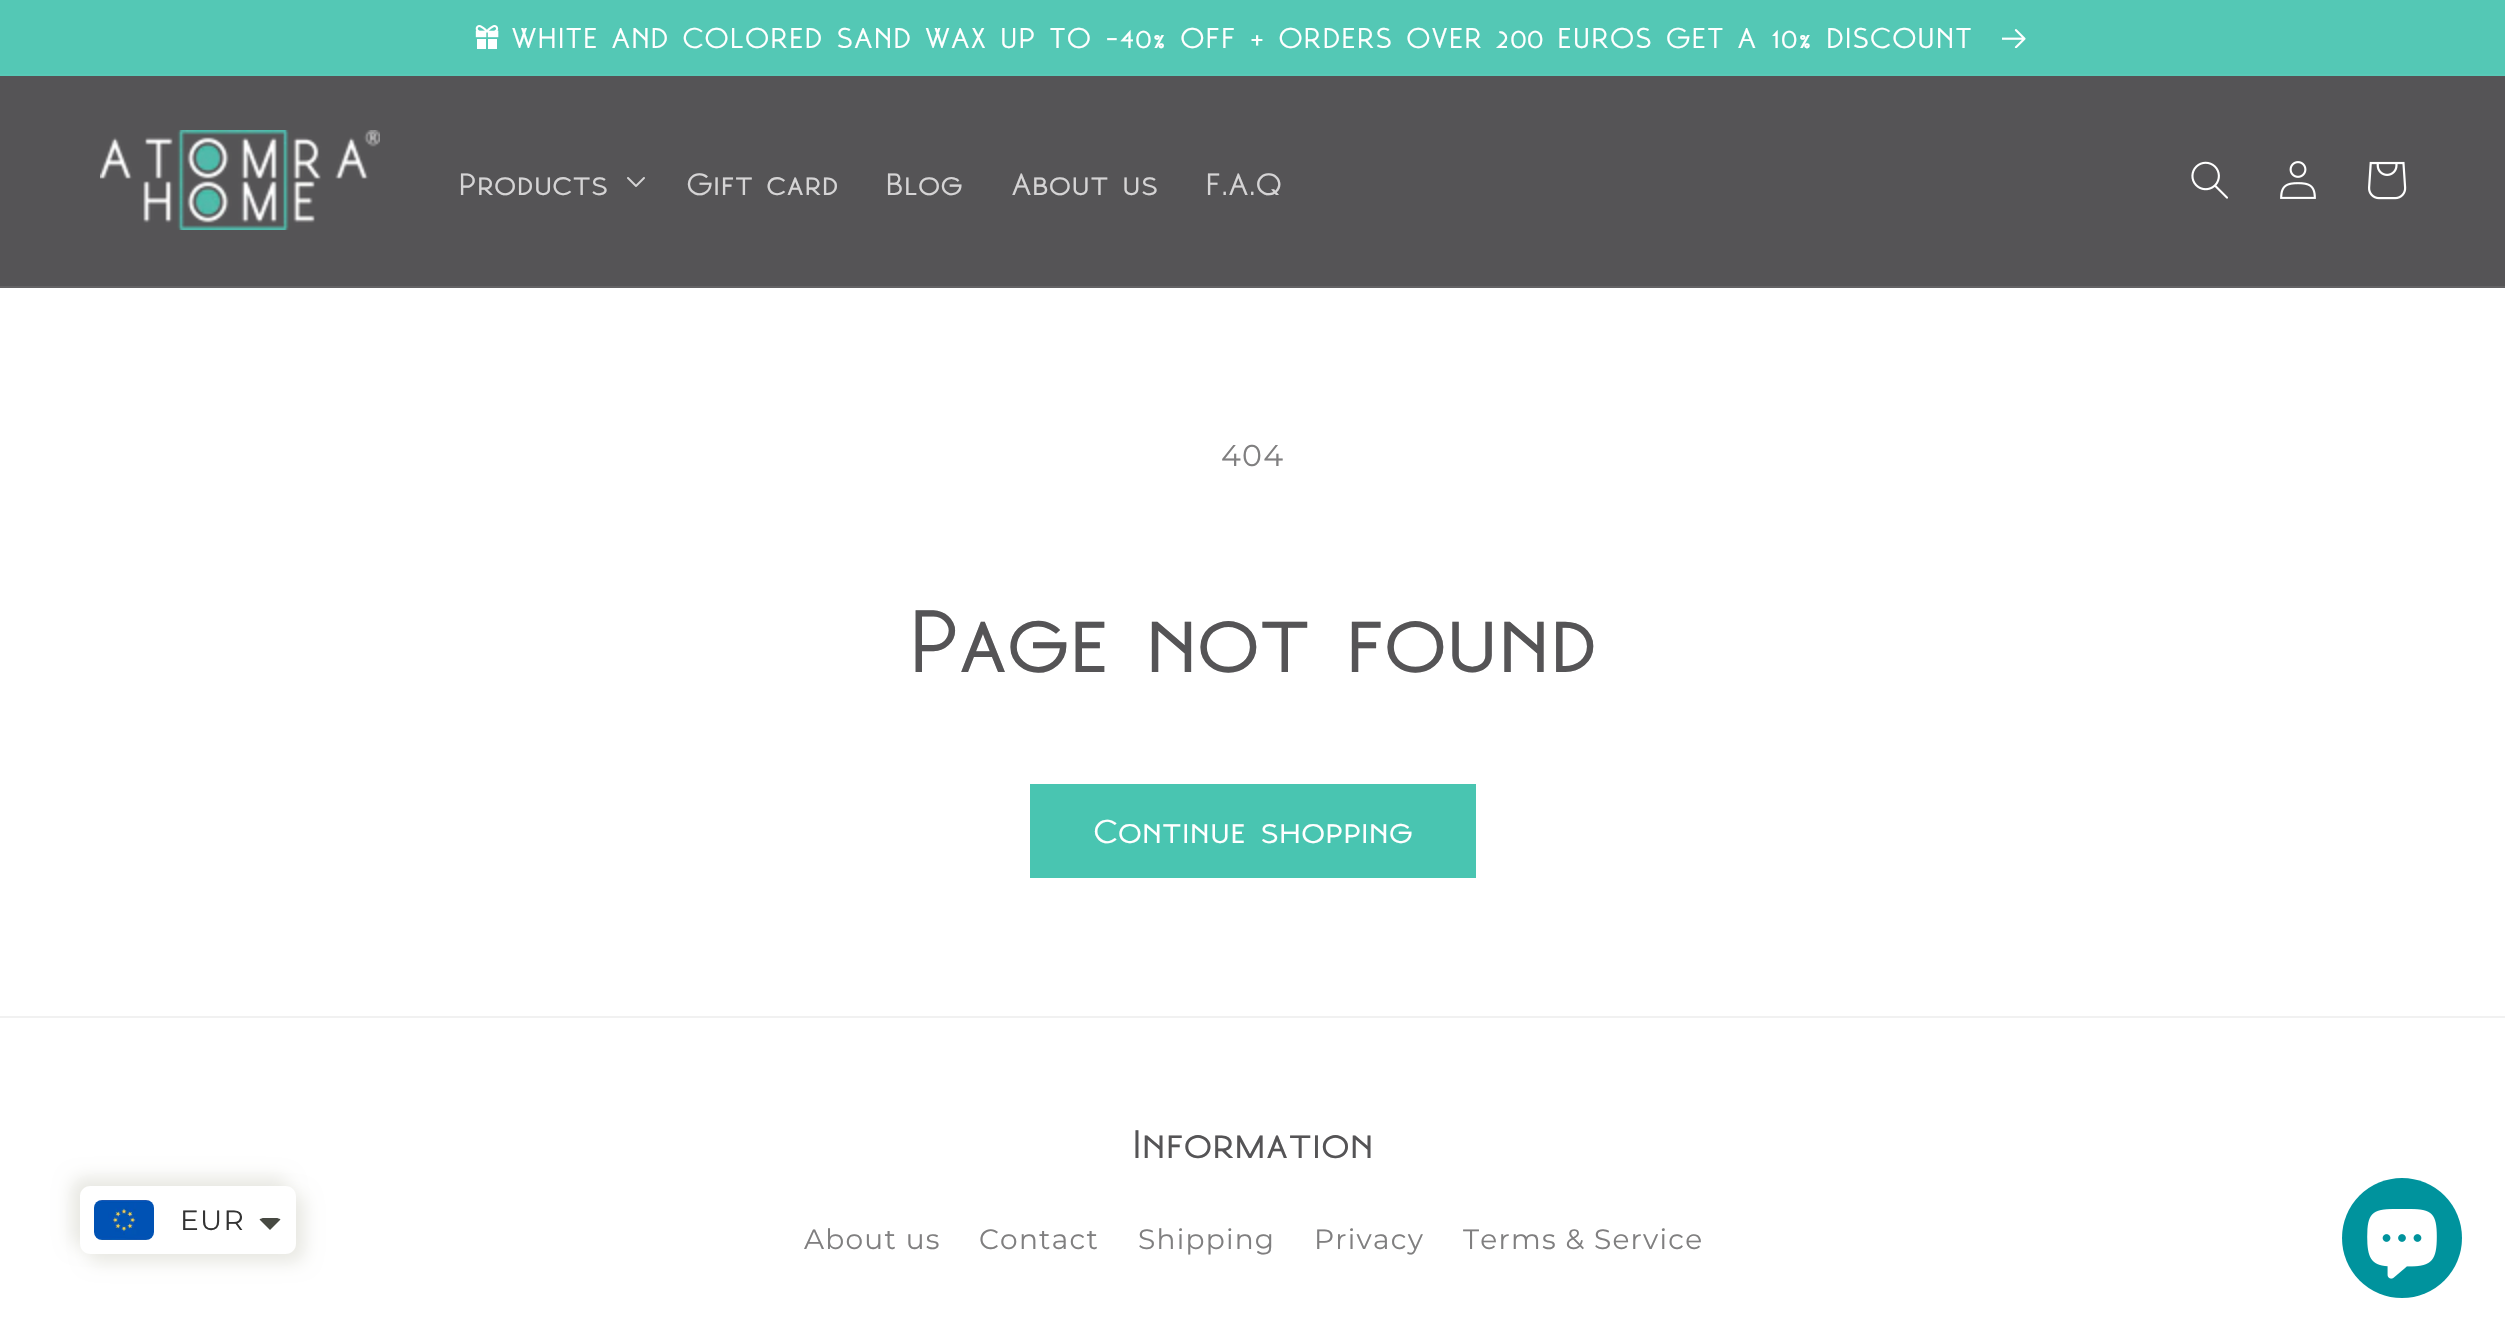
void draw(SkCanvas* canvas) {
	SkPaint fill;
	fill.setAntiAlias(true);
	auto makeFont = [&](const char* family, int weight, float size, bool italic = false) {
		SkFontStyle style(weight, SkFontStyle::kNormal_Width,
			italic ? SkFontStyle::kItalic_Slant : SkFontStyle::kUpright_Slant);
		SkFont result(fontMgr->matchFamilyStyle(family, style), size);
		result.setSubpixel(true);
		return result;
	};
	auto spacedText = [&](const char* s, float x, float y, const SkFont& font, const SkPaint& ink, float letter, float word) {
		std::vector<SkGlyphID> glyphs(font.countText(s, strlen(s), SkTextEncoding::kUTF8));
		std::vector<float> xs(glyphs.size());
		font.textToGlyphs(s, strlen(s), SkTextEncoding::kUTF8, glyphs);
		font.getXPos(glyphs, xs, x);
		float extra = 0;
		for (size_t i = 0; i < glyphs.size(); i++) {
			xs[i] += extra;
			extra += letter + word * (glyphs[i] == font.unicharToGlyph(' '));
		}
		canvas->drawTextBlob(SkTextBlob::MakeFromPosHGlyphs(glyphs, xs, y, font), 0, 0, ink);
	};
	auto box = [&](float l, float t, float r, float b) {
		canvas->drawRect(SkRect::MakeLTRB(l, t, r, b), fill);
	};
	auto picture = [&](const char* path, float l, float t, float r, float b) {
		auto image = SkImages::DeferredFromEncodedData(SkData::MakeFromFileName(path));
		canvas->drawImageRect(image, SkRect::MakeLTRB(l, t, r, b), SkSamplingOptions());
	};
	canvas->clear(0xFFFFFFFF);
	fill.setColor(0xFF58CAB7);
	box(0, 74, 2505, 76);
	fill.setColor(0xFF54C8B5);
	box(0, 0, 2505, 74);
	picture("image0.png", 475, 25, 499, 49);
	picture("image1.png", 2002, 29, 2026, 48);
	fill.setColor(0xFF555456);
	box(0, 76, 2505, 286);
	fill.setColor(0xFF636264);
	box(0, 286, 2505, 288);
	picture("image2.png", 100, 130, 380, 230);
	picture("image3.png", 627, 177, 645, 187);
	picture("image4.png", 2191, 161, 2228, 199);
	picture("image5.png", 2280, 161, 2316, 199);
	picture("image6.png", 2368, 161, 2407, 200);
	fill.setStyle(SkPaint::kStroke_Style);
	fill.setStrokeWidth(2);
	fill.setColor(0xFF49C5B1);
	canvas->drawRect(SkRect::MakeLTRB(1031, 785, 1475, 877), fill);
	fill.setStyle(SkPaint::kFill_Style);
	box(1032, 786, 1474, 876);
	canvas->save();
	canvas->clipPath(SkPathBuilder(SkPathFillType::kEvenOdd).moveTo(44, 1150).lineTo(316, 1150).lineTo(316, 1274).lineTo(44, 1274).close().moveTo(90, 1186).lineTo(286, 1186).cubicTo(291.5f, 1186, 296, 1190.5f, 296, 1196).lineTo(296, 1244).cubicTo(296, 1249.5f, 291.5f, 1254, 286, 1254).lineTo(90, 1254).cubicTo(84.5f, 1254, 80, 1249.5f, 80, 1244).lineTo(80, 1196).cubicTo(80, 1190.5f, 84.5f, 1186, 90, 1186).close().detach(), true);
	fill.setColor(0xFFE8E8E2);
	fill.setMaskFilter(SkMaskFilter::MakeBlur(kNormal_SkBlurStyle, 9));
	canvas->drawRoundRect(SkRect::MakeLTRB(72, 1178, 288, 1246), 10, 10, fill);
	fill.setMaskFilter(nullptr);
	canvas->restore();
	canvas->save();
	canvas->clipPath(SkPathBuilder(SkPathFillType::kEvenOdd).moveTo(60, 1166).lineTo(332, 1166).lineTo(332, 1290).lineTo(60, 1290).close().moveTo(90, 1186).lineTo(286, 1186).cubicTo(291.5f, 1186, 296, 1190.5f, 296, 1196).lineTo(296, 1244).cubicTo(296, 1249.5f, 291.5f, 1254, 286, 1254).lineTo(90, 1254).cubicTo(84.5f, 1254, 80, 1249.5f, 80, 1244).lineTo(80, 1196).cubicTo(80, 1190.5f, 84.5f, 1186, 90, 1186).close().detach(), true);
	fill.setMaskFilter(SkMaskFilter::MakeBlur(kNormal_SkBlurStyle, 9));
	canvas->drawRoundRect(SkRect::MakeLTRB(88, 1194, 304, 1262), 10, 10, fill);
	fill.setMaskFilter(nullptr);
	canvas->restore();
	picture("image7.png", 94, 1200, 154, 1240);
	fill.setColor(0xFF474942);
	canvas->drawPath(SkPathBuilder().moveTo(264, 1218).cubicTo(262, 1218, 261, 1218.5f, 259.5f, 1219.5f).lineTo(270, 1230).lineTo(280.5f, 1219.5f).cubicTo(279, 1218.5f, 278, 1218, 276, 1218).close().detach(), fill);
	fill.setColor(0xFFF1F1F1);
	box(0, 1016, 2505, 1018);
	fill.setColor(0xFF00939D);
	canvas->drawCircle(2402, 1238, 60, fill);
	picture("image8.png", 2367, 1209, 2437, 1279);
	auto font1 = makeFont("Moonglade", 700, 26);
	fill.setColor(0xFFFFFFFF);
	spacedText("WHITE AND COLORED SAND WAX UP TO -40% OFF + ORDERS OVER 200 EUROS GET A 10% DISCOUNT", 512, 48, font1, fill, 2, 0);
	auto font2 = makeFont("Moonglade", 700, 28);
	fill.setColor(0xFFD5D4D5);
	spacedText("Products", 459, 195, font2, fill, 1.25f, 0);
	spacedText("Gift card", 687, 195, font2, fill, 1.25f, 0);
	spacedText("Blog", 886, 195, font2, fill, 1.25f, 0);
	spacedText("About us", 1012, 195, font2, fill, 1.25f, 0);
	spacedText("F.A.Q", 1206, 195, font2, fill, 1.25f, 0);
	auto font3 = makeFont("Montserrat", 400, 30);
	fill.setColor(0xFF807F80);
	spacedText("404", 1221, 466, font3, fill, 1.25f, 0);
	auto font4 = makeFont("Moonglade", 700, 80);
	fill.setColor(0xFF555456);
	spacedText("Page not found", 910, 672, font4, fill, 1.25f, 0);
	auto font5 = makeFont("Moonglade", 700, 30);
	fill.setColor(0xFFFFFFFF);
	spacedText("Continue shopping", 1094, 843, font5, fill, 1.25f, 0);
	auto font6 = makeFont("Montserrat", 400, 28);
	fill.setColor(0xFF333333);
	spacedText("EUR", 180, 1230, font6, fill, 1.25f, 0);
	auto font7 = makeFont("Moonglade", 700, 36);
	fill.setColor(0xFF555456);
	spacedText("Information", 1133, 1158, font7, fill, 1.25f, 0);
	fill.setColor(0xFF807F80);
	spacedText("About us", 804, 1249, font6, fill, 1.25f, 0);
	spacedText("Contact", 979, 1249, font6, fill, 1.25f, 0);
	spacedText("Shipping", 1138, 1249, font6, fill, 1.25f, 0);
	spacedText("Privacy", 1314, 1249, font6, fill, 1.25f, 0);
	spacedText("Terms & Service", 1463, 1249, font6, fill, 1.25f, 0);
}
